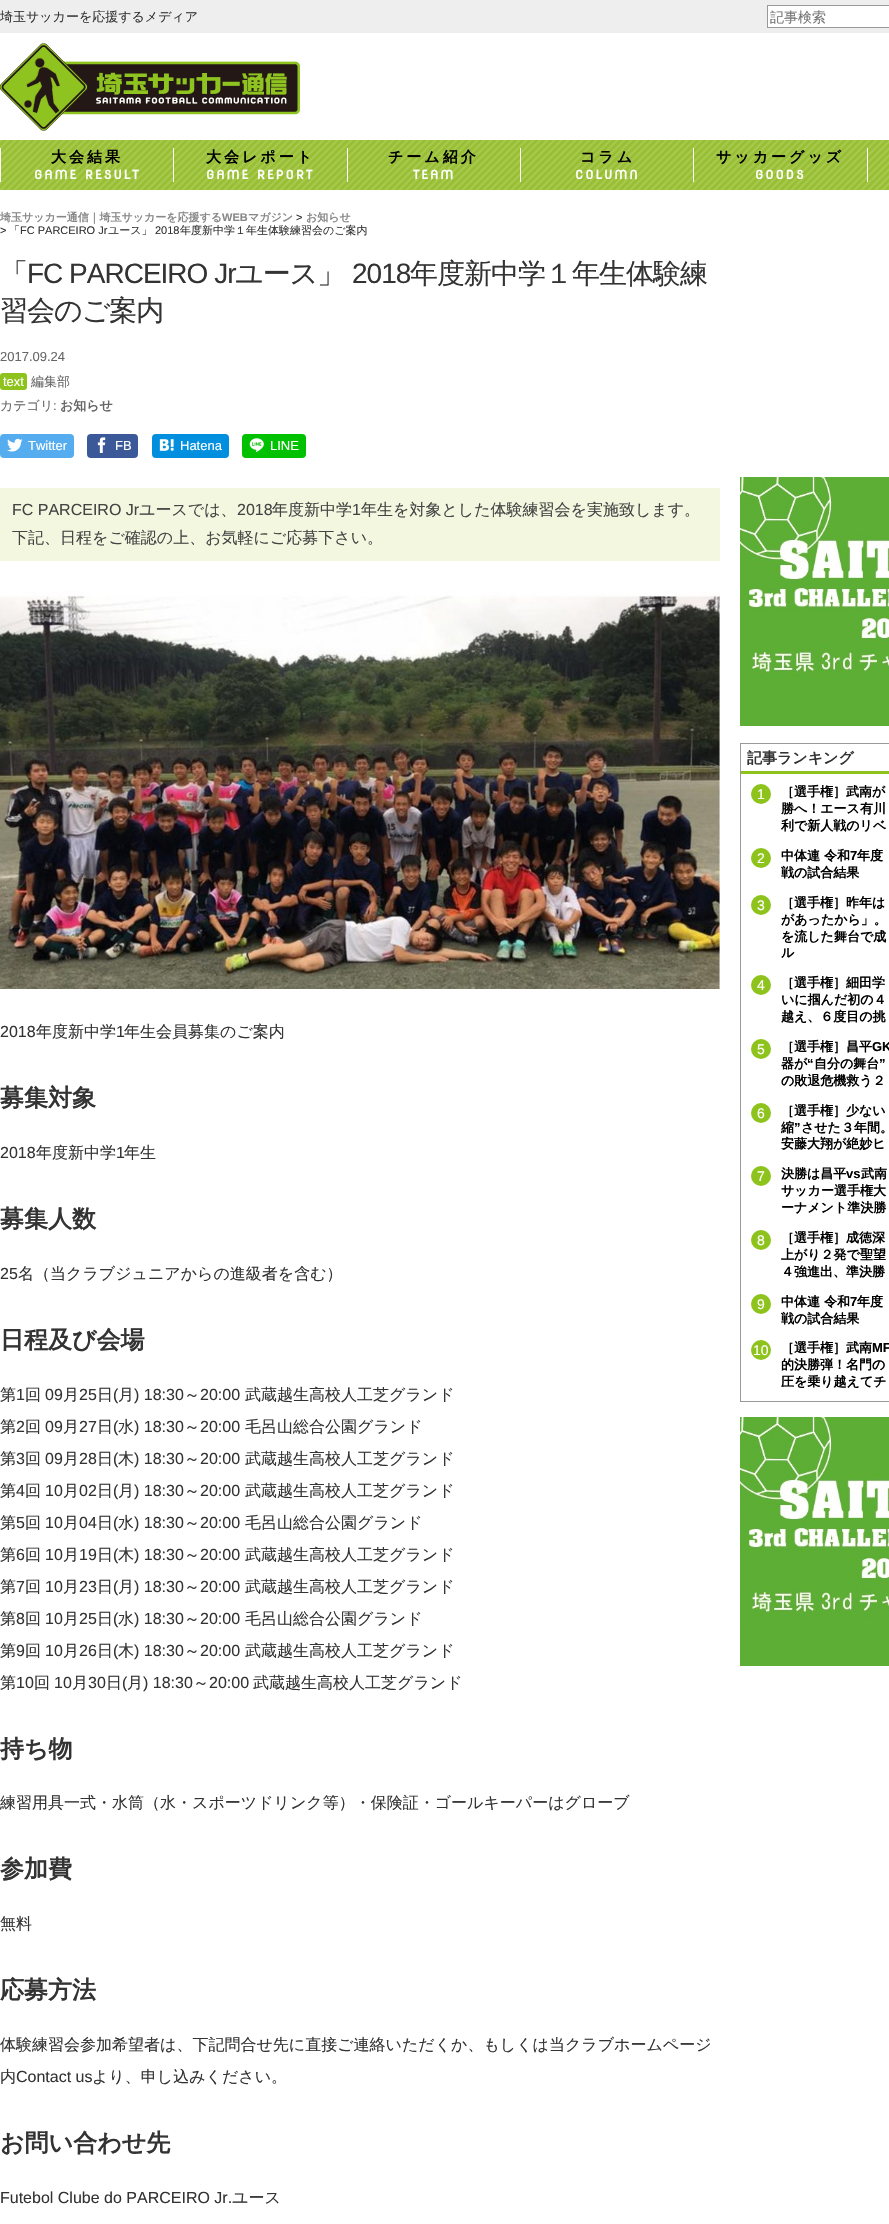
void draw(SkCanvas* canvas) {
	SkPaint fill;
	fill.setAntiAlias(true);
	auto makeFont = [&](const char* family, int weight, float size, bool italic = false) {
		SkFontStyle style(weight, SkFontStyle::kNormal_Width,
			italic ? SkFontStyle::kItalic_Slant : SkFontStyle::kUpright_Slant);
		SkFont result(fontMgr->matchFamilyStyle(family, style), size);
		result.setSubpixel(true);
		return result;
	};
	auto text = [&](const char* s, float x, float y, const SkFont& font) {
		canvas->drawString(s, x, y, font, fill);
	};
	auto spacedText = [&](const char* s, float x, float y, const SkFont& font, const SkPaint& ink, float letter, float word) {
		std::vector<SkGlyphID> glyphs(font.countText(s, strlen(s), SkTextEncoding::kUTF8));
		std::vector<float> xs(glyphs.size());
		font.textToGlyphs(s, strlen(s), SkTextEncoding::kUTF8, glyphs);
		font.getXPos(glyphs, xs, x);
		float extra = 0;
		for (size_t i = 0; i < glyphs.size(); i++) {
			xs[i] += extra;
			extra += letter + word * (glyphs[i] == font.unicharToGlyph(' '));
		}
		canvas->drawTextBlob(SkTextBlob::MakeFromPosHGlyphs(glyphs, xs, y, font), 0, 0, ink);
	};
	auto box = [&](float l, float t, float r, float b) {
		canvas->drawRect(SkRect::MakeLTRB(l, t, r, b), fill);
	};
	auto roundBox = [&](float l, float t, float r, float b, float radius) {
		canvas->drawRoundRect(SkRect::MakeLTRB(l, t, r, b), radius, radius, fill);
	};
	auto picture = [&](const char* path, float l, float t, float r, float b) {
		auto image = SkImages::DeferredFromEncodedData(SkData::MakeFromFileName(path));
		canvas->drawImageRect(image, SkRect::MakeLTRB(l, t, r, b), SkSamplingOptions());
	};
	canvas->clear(0xFFFFFFFF);
	fill.setColor(0xFFEEEEEE);
	box(0, 0, 889, 33);
	fill.setColor(0xFFFFFFFF);
	canvas->drawRect(SkRect::MakeLTRB(767.5f, 5.5f, 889.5f, 27.5f), fill);
	fill.setStyle(SkPaint::kStroke_Style);
	fill.setStrokeWidth(1);
	fill.setColor(0xFF999999);
	canvas->drawRect(SkRect::MakeLTRB(767.5f, 5.5f, 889.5f, 27.5f), fill);
	picture("image0.png", 0, 43, 300, 131);
	picture("image1.png", 0, 140, 889, 190);
	fill.setStyle(SkPaint::kFill_Style);
	fill.setColor(0xFFFFFFFF);
	box(0, 148, 1, 182);
	box(173, 148, 174, 182);
	box(347, 148, 348, 182);
	box(520, 148, 521, 182);
	box(693, 148, 694, 182);
	box(867, 148, 868, 182);
	fill.setColor(0xFF8EC31E);
	roundBox(0, 373, 27, 390, 3);
	fill.setColor(0xFF55ACEE);
	roundBox(0, 434, 74, 458, 4);
	picture("image2.png", 7, 438, 23, 452);
	fill.setColor(0xFF3B5998);
	roundBox(87, 434, 138, 458, 4);
	picture("image3.png", 97, 437, 106, 453);
	fill.setColor(0xFF008FDE);
	roundBox(152, 434, 229, 458, 4);
	fill.setColor(0xFF0390DE);
	box(159, 438, 175, 454);
	picture("image4.png", 159, 439, 174, 451);
	box(180, 438, 222, 453);
	fill.setColor(0xFF00C100);
	roundBox(242, 434, 306, 458, 4);
	fill.setColor(0xFF03C203);
	box(249, 438, 265, 454);
	picture("image5.png", 249, 438, 264, 452);
	box(270, 438, 299, 453);
	fill.setColor(0xFFF4F7DF);
	box(0, 488, 720, 561);
	picture("image6.png", 0, 591, 720, 989);
	picture("image7.png", 740, 477, 889, 726);
	fill.setStyle(SkPaint::kStroke_Style);
	fill.setColor(0xFF999999);
	canvas->drawRect(SkRect::MakeLTRB(740.5f, 743.5f, 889.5f, 1401.5f), fill);
	fill.setStyle(SkPaint::kFill_Style);
	fill.setColor(0xFF8EC31E);
	box(741, 771, 889, 774);
	canvas->drawCircle(761, 794, 10, fill);
	canvas->drawCircle(761, 858, 10, fill);
	canvas->drawCircle(761, 905, 10, fill);
	canvas->drawCircle(761, 985, 10, fill);
	canvas->drawCircle(761, 1049, 10, fill);
	canvas->drawCircle(761, 1113, 10, fill);
	canvas->drawCircle(761, 1176, 10, fill);
	canvas->drawCircle(761, 1240, 10, fill);
	canvas->drawCircle(761, 1304, 10, fill);
	canvas->drawCircle(761, 1350, 10, fill);
	picture("image7.png", 740, 1417, 889, 1666);
	auto font1 = makeFont("WenQuanYi Zen Hei", 500, 13);
	fill.setColor(0xFF333333);
	text("埼玉サッカーを応援するメディア", 0, 21, font1);
	auto font2 = makeFont("WenQuanYi Zen Hei", 500, 14);
	fill.setColor(0xFF757575);
	text("記事検索", 770, 22, font2);
	auto font3 = makeFont("WenQuanYi Zen Hei", 700, 15);
	fill.setColor(0xFF000000);
	spacedText("大会結果", 51, 162, font3, fill, 3, 0);
	auto font4 = makeFont("Nova Round", 700, 12);
	fill.setColor(0xFFFFFFFF);
	spacedText("GAME RESULT", 34, 179, font4, fill, 2, 0);
	fill.setColor(0xFF000000);
	spacedText("大会レポート", 206, 162, font3, fill, 3, 0);
	fill.setColor(0xFFFFFFFF);
	spacedText("GAME REPORT", 206, 179, font4, fill, 2, 0);
	fill.setColor(0xFF000000);
	spacedText("チーム紹介", 388, 162, font3, fill, 3, 0);
	fill.setColor(0xFFFFFFFF);
	spacedText("TEAM", 413, 179, font4, fill, 2, 0);
	fill.setColor(0xFF000000);
	spacedText("コラム", 580, 162, font3, fill, 3, 0);
	fill.setColor(0xFFFFFFFF);
	spacedText("COLUMN", 575, 179, font4, fill, 2, 0);
	fill.setColor(0xFF000000);
	spacedText("サッカーグッズ", 716, 162, font3, fill, 3, 0);
	fill.setColor(0xFFFFFFFF);
	spacedText("GOODS", 755, 179, font4, fill, 2, 0);
	auto font5 = makeFont("WenQuanYi Zen Hei", 700, 11);
	fill.setColor(0xFF888888);
	text("埼玉サッカー通信｜埼玉サッカーを応援する", 0, 221, font5);
	auto font6 = makeFont("Liberation Sans", 700, 11);
	text("WEB", 222, 221, font6);
	text("マガジン", 248, 221, font5);
	auto font7 = makeFont("Liberation Sans", 400, 11);
	fill.setColor(0xFF333333);
	text(">", 296, 221, font7);
	fill.setColor(0xFF888888);
	text("お知らせ", 306, 221, font5);
	fill.setColor(0xFF333333);
	text(">", 0, 234, font7);
	auto font8 = makeFont("WenQuanYi Zen Hei", 500, 11);
	text("「", 9, 234, font8);
	text("FC PARCEIRO Jr", 20, 234, font7);
	text("ユース」", 108, 234, font8);
	text("2018", 155, 234, font7);
	text("年度新中学１年生体験練習会のご案内", 180, 234, font8);
	auto font9 = makeFont("WenQuanYi Zen Hei", 500, 28);
	spacedText("「", 0, 283, font9, fill, -1, 0);
	auto font10 = makeFont("Liberation Sans", 400, 28);
	spacedText("FC PARCEIRO Jr", 27, 283, font10, fill, -1, 0);
	spacedText("ユース」", 235, 283, font9, fill, -1, 0);
	spacedText("2018", 352, 283, font10, fill, -1, 0);
	spacedText("年度新中学１年生体験練", 410, 283, font9, fill, -1, 0);
	spacedText("習会のご案内", 0, 320, font9, fill, -1, 0);
	auto font11 = makeFont("Liberation Sans", 400, 13);
	fill.setColor(0xFF666666);
	text("2017.09.24", 0, 361, font11);
	fill.setColor(0xFFFFFFFF);
	text("text", 3, 386, font11);
	fill.setColor(0xFF666666);
	text("編集部", 31, 386, font1);
	text("カテゴリ", 0, 410, font1);
	text(":", 53, 410, font11);
	auto font12 = makeFont("WenQuanYi Zen Hei", 700, 13);
	text("お知らせ", 60, 410, font12);
	fill.setColor(0xFFFFFFFF);
	text("Twitter", 28, 450, font11);
	text("FB", 115, 450, font11);
	text("Hatena", 180, 450, font11);
	text("LINE", 270, 450, font11);
	auto font13 = makeFont("Liberation Sans", 400, 16);
	fill.setColor(0xFF444444);
	text("FC PARCEIRO Jr", 12, 515, font13);
	auto font14 = makeFont("WenQuanYi Zen Hei", 500, 16);
	text("ユースでは、", 139, 515, font14);
	text("2018", 237, 515, font13);
	text("年度新中学", 272, 515, font14);
	text("1", 352, 515, font13);
	text("年生を対象とした体験練習会を実施致します。", 361, 515, font14);
	text("下記、日程をご確認の上、お気軽にご応募下さい。", 12, 543, font14);
	fill.setColor(0xFF333333);
	text("2018", 0, 1037, font13);
	text("年度新中学", 36, 1037, font14);
	text("1", 116, 1037, font13);
	text("年生会員募集のご案内", 124, 1037, font14);
	auto font15 = makeFont("WenQuanYi Zen Hei", 700, 24);
	text("募集対象", 0, 1106, font15);
	text("2018", 0, 1158, font13);
	text("年度新中学", 36, 1158, font14);
	text("1", 116, 1158, font13);
	text("年生", 124, 1158, font14);
	text("募集人数", 0, 1227, font15);
	text("25", 0, 1279, font13);
	text("名（当クラブジュニアからの進級者を含む）", 18, 1279, font14);
	text("日程及び会場", 0, 1348, font15);
	text("第", 0, 1400, font14);
	text("1", 16, 1400, font13);
	text("回", 25, 1400, font14);
	text("09", 45, 1400, font13);
	text("月", 63, 1400, font14);
	text("25", 79, 1400, font13);
	text("日", 97, 1400, font14);
	text("(", 113, 1400, font13);
	text("月", 118, 1400, font14);
	text(") 18:30", 134, 1400, font13);
	text("～", 184, 1400, font14);
	text("20:00", 200, 1400, font13);
	text("武蔵越生高校人工芝グランド", 245, 1400, font14);
	text("第", 0, 1432, font14);
	text("2", 16, 1432, font13);
	text("回", 25, 1432, font14);
	text("09", 45, 1432, font13);
	text("月", 63, 1432, font14);
	text("27", 79, 1432, font13);
	text("日", 97, 1432, font14);
	text("(", 113, 1432, font13);
	text("水", 118, 1432, font14);
	text(") 18:30", 134, 1432, font13);
	text("～", 184, 1432, font14);
	text("20:00", 200, 1432, font13);
	text("毛呂山総合公園グランド", 245, 1432, font14);
	text("第", 0, 1464, font14);
	text("3", 16, 1464, font13);
	text("回", 25, 1464, font14);
	text("09", 45, 1464, font13);
	text("月", 63, 1464, font14);
	text("28", 79, 1464, font13);
	text("日", 97, 1464, font14);
	text("(", 113, 1464, font13);
	text("木", 118, 1464, font14);
	text(") 18:30", 134, 1464, font13);
	text("～", 184, 1464, font14);
	text("20:00", 200, 1464, font13);
	text("武蔵越生高校人工芝グランド", 245, 1464, font14);
	text("第", 0, 1496, font14);
	text("4", 16, 1496, font13);
	text("回", 25, 1496, font14);
	text("10", 45, 1496, font13);
	text("月", 63, 1496, font14);
	text("02", 79, 1496, font13);
	text("日", 97, 1496, font14);
	text("(", 113, 1496, font13);
	text("月", 118, 1496, font14);
	text(") 18:30", 134, 1496, font13);
	text("～", 184, 1496, font14);
	text("20:00", 200, 1496, font13);
	text("武蔵越生高校人工芝グランド", 245, 1496, font14);
	text("第", 0, 1528, font14);
	text("5", 16, 1528, font13);
	text("回", 25, 1528, font14);
	text("10", 45, 1528, font13);
	text("月", 63, 1528, font14);
	text("04", 79, 1528, font13);
	text("日", 97, 1528, font14);
	text("(", 113, 1528, font13);
	text("水", 118, 1528, font14);
	text(") 18:30", 134, 1528, font13);
	text("～", 184, 1528, font14);
	text("20:00", 200, 1528, font13);
	text("毛呂山総合公園グランド", 245, 1528, font14);
	text("第", 0, 1560, font14);
	text("6", 16, 1560, font13);
	text("回", 25, 1560, font14);
	text("10", 45, 1560, font13);
	text("月", 63, 1560, font14);
	text("19", 79, 1560, font13);
	text("日", 97, 1560, font14);
	text("(", 113, 1560, font13);
	text("木", 118, 1560, font14);
	text(") 18:30", 134, 1560, font13);
	text("～", 184, 1560, font14);
	text("20:00", 200, 1560, font13);
	text("武蔵越生高校人工芝グランド", 245, 1560, font14);
	text("第", 0, 1592, font14);
	text("7", 16, 1592, font13);
	text("回", 25, 1592, font14);
	text("10", 45, 1592, font13);
	text("月", 63, 1592, font14);
	text("23", 79, 1592, font13);
	text("日", 97, 1592, font14);
	text("(", 113, 1592, font13);
	text("月", 118, 1592, font14);
	text(") 18:30", 134, 1592, font13);
	text("～", 184, 1592, font14);
	text("20:00", 200, 1592, font13);
	text("武蔵越生高校人工芝グランド", 245, 1592, font14);
	text("第", 0, 1624, font14);
	text("8", 16, 1624, font13);
	text("回", 25, 1624, font14);
	text("10", 45, 1624, font13);
	text("月", 63, 1624, font14);
	text("25", 79, 1624, font13);
	text("日", 97, 1624, font14);
	text("(", 113, 1624, font13);
	text("水", 118, 1624, font14);
	text(") 18:30", 134, 1624, font13);
	text("～", 184, 1624, font14);
	text("20:00", 200, 1624, font13);
	text("毛呂山総合公園グランド", 245, 1624, font14);
	text("第", 0, 1656, font14);
	text("9", 16, 1656, font13);
	text("回", 25, 1656, font14);
	text("10", 45, 1656, font13);
	text("月", 63, 1656, font14);
	text("26", 79, 1656, font13);
	text("日", 97, 1656, font14);
	text("(", 113, 1656, font13);
	text("木", 118, 1656, font14);
	text(") 18:30", 134, 1656, font13);
	text("～", 184, 1656, font14);
	text("20:00", 200, 1656, font13);
	text("武蔵越生高校人工芝グランド", 245, 1656, font14);
	text("第", 0, 1688, font14);
	text("10", 16, 1688, font13);
	text("回", 34, 1688, font14);
	text("10", 54, 1688, font13);
	text("月", 72, 1688, font14);
	text("30", 88, 1688, font13);
	text("日", 106, 1688, font14);
	text("(", 122, 1688, font13);
	text("月", 127, 1688, font14);
	text(") 18:30", 143, 1688, font13);
	text("～", 193, 1688, font14);
	text("20:00", 209, 1688, font13);
	text("武蔵越生高校人工芝グランド", 253, 1688, font14);
	text("持ち物", 0, 1757, font15);
	text("練習用具一式・水筒（水・スポーツドリンク等）・保険証・ゴールキーパーはグローブ", 0, 1808, font14);
	text("参加費", 0, 1877, font15);
	text("無料", 0, 1929, font14);
	text("応募方法", 0, 1998, font15);
	text("体験練習会参加希望者は、下記問合せ先に直接ご連絡いただくか、もしくは当クラブホームページ", 0, 2050, font14);
	text("内", 0, 2082, font14);
	text("Contact us", 16, 2082, font13);
	text("より、申し込みください。", 92, 2082, font14);
	text("お問い合わせ先", 0, 2151, font15);
	text("Futebol Clube do PARCEIRO Jr.", 0, 2203, font13);
	text("ユース", 232, 2203, font14);
	text("記事ランキング", 747, 763, font3);
	auto font16 = makeFont("Liberation Sans", 400, 14);
	fill.setColor(0xFFFFFFFF);
	text("1", 757, 799, font16);
	fill.setColor(0xFF000000);
	text("［選手権］武南が", 781, 796, font12);
	text("勝へ！エース有川", 781, 813, font12);
	text("利で新人戦のリベ", 781, 830, font12);
	fill.setColor(0xFFFFFFFF);
	text("2", 757, 863, font16);
	fill.setColor(0xFF000000);
	text("中体連 令和", 781, 860, font12);
	auto font17 = makeFont("Liberation Sans", 700, 13);
	text("7", 850, 860, font17);
	text("年度", 857, 860, font12);
	text("戦の試合結果", 781, 877, font12);
	fill.setColor(0xFFFFFFFF);
	text("3", 757, 910, font16);
	fill.setColor(0xFF000000);
	text("［選手権］昨年は", 781, 907, font12);
	text("があったから」。", 781, 924, font12);
	text("を流した舞台で成", 781, 941, font12);
	text("ル", 781, 957, font12);
	fill.setColor(0xFFFFFFFF);
	text("4", 757, 990, font16);
	fill.setColor(0xFF000000);
	text("［選手権］細田学", 781, 987, font12);
	text("いに掴んだ初の４", 781, 1004, font12);
	text("越え、６度目の挑", 781, 1021, font12);
	fill.setColor(0xFFFFFFFF);
	text("5", 757, 1054, font16);
	fill.setColor(0xFF000000);
	text("［選手権］昌平", 781, 1051, font12);
	text("GK", 872, 1051, font17);
	text("器が", 781, 1068, font12);
	text("“", 807, 1068, font17);
	text("自分の舞台", 814, 1068, font12);
	text("”", 879, 1068, font17);
	text("の敗退危機救う２", 781, 1085, font12);
	fill.setColor(0xFFFFFFFF);
	text("6", 757, 1118, font16);
	fill.setColor(0xFF000000);
	text("［選手権］少ない", 781, 1115, font12);
	text("縮", 781, 1132, font12);
	text("”", 794, 1132, font17);
	text("させた３年間。", 801, 1132, font12);
	text("安藤大翔が絶妙ヒ", 781, 1148, font12);
	fill.setColor(0xFFFFFFFF);
	text("7", 757, 1181, font16);
	fill.setColor(0xFF000000);
	text("決勝は昌平", 781, 1178, font12);
	text("vs", 846, 1178, font17);
	text("武南", 861, 1178, font12);
	text("サッカー選手権大", 781, 1195, font12);
	text("ーナメント準決勝", 781, 1212, font12);
	fill.setColor(0xFFFFFFFF);
	text("8", 757, 1245, font16);
	fill.setColor(0xFF000000);
	text("［選手権］成徳深", 781, 1242, font12);
	text("上がり２発で聖望", 781, 1259, font12);
	text("４強進出、準決勝", 781, 1276, font12);
	fill.setColor(0xFFFFFFFF);
	text("9", 757, 1309, font16);
	fill.setColor(0xFF000000);
	text("中体連 令和", 781, 1306, font12);
	text("7", 850, 1306, font17);
	text("年度", 857, 1306, font12);
	text("戦の試合結果", 781, 1323, font12);
	fill.setColor(0xFFFFFFFF);
	text("10", 753, 1355, font16);
	fill.setColor(0xFF000000);
	text("［選手権］武南", 781, 1352, font12);
	text("MF", 872, 1352, font17);
	text("的決勝弾！名門の", 781, 1369, font12);
	text("圧を乗り越えてチ", 781, 1386, font12);
}
